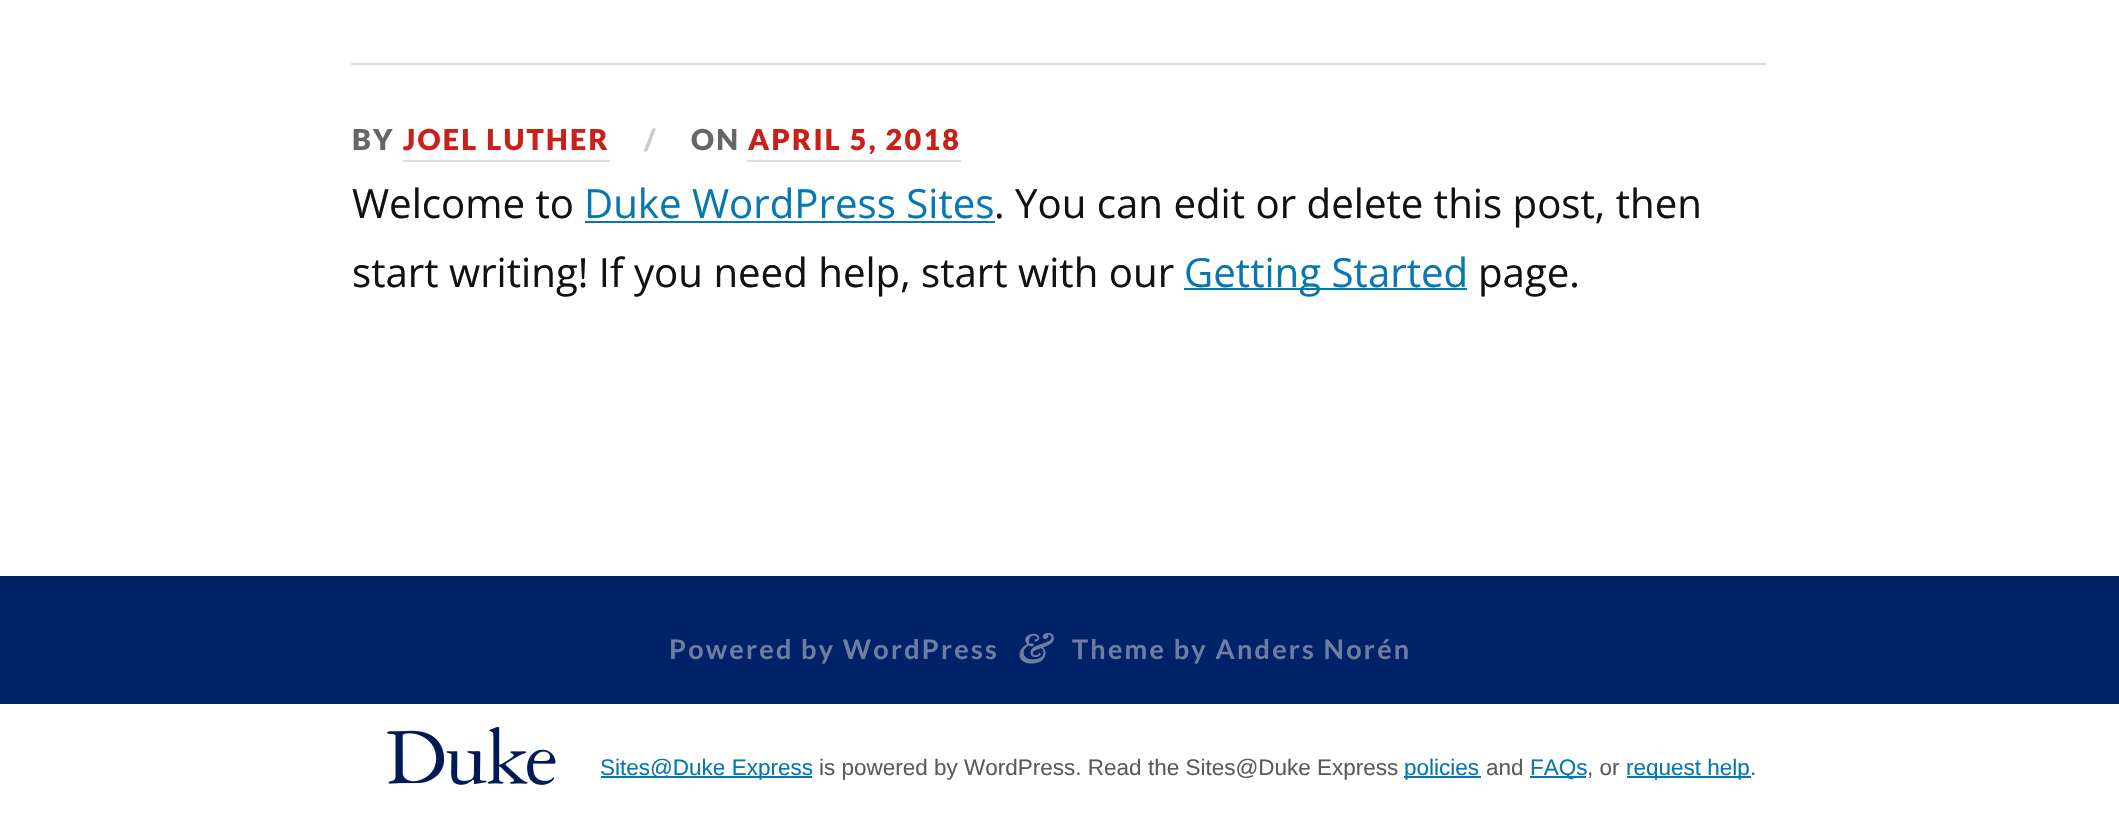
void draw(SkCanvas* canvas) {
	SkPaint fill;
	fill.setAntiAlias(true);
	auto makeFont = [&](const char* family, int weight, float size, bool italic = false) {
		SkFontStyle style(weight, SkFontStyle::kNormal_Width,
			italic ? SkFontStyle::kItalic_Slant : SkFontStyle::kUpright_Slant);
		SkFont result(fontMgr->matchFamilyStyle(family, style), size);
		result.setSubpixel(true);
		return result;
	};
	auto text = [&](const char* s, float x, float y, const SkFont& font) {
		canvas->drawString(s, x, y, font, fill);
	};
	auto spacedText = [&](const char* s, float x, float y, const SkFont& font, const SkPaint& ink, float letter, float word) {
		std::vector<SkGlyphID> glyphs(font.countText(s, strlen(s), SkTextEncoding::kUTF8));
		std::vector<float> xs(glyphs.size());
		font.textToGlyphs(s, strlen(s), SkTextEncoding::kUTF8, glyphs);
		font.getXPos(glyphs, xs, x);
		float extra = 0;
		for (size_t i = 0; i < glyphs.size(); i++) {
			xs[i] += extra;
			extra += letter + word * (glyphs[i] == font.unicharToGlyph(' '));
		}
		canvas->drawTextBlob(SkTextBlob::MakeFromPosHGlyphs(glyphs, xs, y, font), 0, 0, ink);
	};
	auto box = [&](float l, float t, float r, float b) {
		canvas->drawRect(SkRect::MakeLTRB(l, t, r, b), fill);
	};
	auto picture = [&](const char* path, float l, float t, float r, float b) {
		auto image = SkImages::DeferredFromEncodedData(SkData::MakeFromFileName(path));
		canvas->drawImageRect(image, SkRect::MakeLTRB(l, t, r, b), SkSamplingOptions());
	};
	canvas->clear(0xFFFFFFFF);
	fill.setColor(0xFFDDDDDD);
	box(351, 63, 1766, 65);
	box(403, 160, 610, 162);
	box(747, 160, 961, 162);
	fill.setColor(0xFF0577B1);
	box(585, 221, 995, 223);
	box(1184, 288, 1467, 290);
	fill.setColor(0xFF012169);
	box(0, 576, 2119, 704);
	picture("image0.png", 387, 727, 556, 785);
	fill.setColor(0xFF0577B1);
	box(601, 776, 812, 778);
	box(1404, 776, 1481, 778);
	box(1530, 776, 1586, 778);
	box(1627, 776, 1751, 778);
	auto font1 = makeFont("Lato", 900, 28.75f);
	fill.setColor(0xFF666666);
	spacedText("BY", 352, 150, font1, fill, 2.25f, 0);
	fill.setColor(0xFFCA2017);
	spacedText("JOEL LUTHER", 403, 150, font1, fill, 2.25f, 0);
	fill.setColor(0xFFCCCCCC);
	spacedText("/", 644, 150, font1, fill, 2.25f, 0);
	fill.setColor(0xFF666666);
	spacedText("ON", 691, 150, font1, fill, 2.25f, 0);
	fill.setColor(0xFFCA2017);
	spacedText("APRIL 5, 2018", 748, 150, font1, fill, 2.25f, 0);
	auto font2 = makeFont("Open Sans", 400, 40.2f);
	fill.setColor(0xFF111111);
	text("Welcome to", 352, 218, font2);
	fill.setColor(0xFF0577B1);
	text("Duke WordPress Sites", 584, 218, font2);
	fill.setColor(0xFF111111);
	text(". You can edit or delete this post, then", 994, 218, font2);
	text("start writing! If you need help, start with our", 352, 287, font2);
	fill.setColor(0xFF0577B1);
	text("Getting Started", 1184, 287, font2);
	fill.setColor(0xFF111111);
	text("page.", 1478, 287, font2);
	auto font3 = makeFont("Lato", 700, 27);
	fill.setColor(0xFF6E7EA2);
	spacedText("Powered by WordPress", 669, 659, font3, fill, 2.25f, 0);
	auto font4 = makeFont("Playfair Display", 700, 40, true);
	spacedText("&", 1018, 663, font4, fill, 2.25f, 0);
	spacedText("Theme by Anders Norén", 1072, 659, font3, fill, 2.25f, 0);
	auto font5 = makeFont("Liberation Sans", 400, 22.5f);
	fill.setColor(0xFF0577B1);
	text("Sites@Duke Express", 600, 775, font5);
	fill.setColor(0xFF5B5B5B);
	text("is powered by WordPress. Read the Sites@Duke Express", 819, 775, font5);
	fill.setColor(0xFF0577B1);
	text("policies", 1404, 775, font5);
	fill.setColor(0xFF5B5B5B);
	text("and", 1486, 775, font5);
	fill.setColor(0xFF0577B1);
	text("FAQs", 1530, 775, font5);
	fill.setColor(0xFF5B5B5B);
	text(", or", 1587, 775, font5);
	fill.setColor(0xFF0577B1);
	text("request help", 1626, 775, font5);
	fill.setColor(0xFF5B5B5B);
	text(".", 1750, 775, font5);
}
